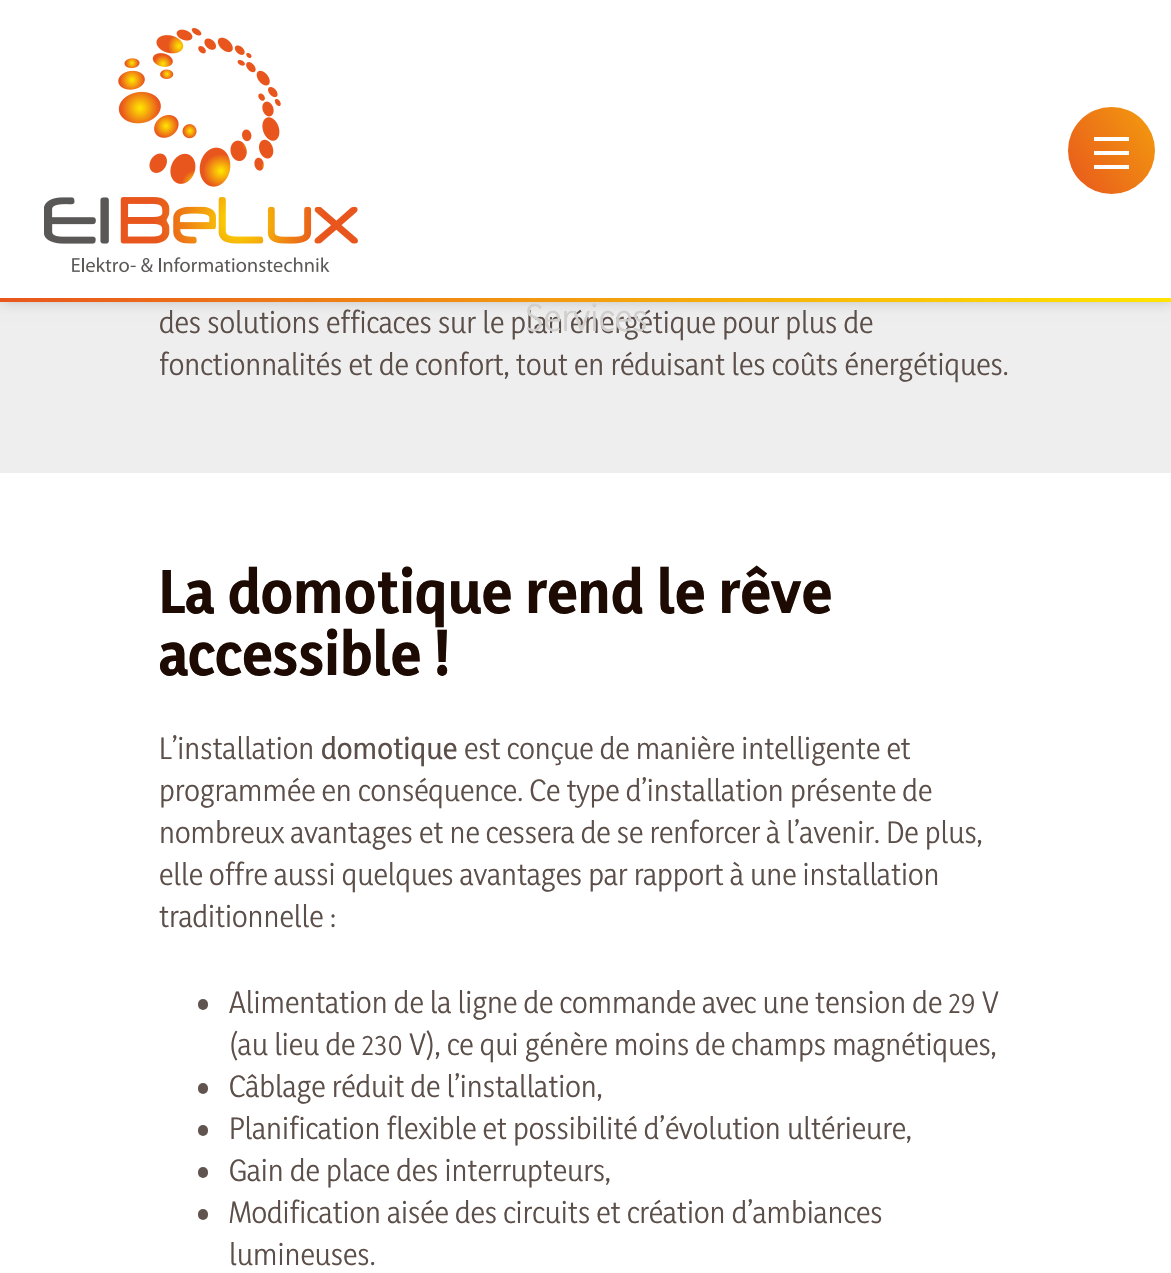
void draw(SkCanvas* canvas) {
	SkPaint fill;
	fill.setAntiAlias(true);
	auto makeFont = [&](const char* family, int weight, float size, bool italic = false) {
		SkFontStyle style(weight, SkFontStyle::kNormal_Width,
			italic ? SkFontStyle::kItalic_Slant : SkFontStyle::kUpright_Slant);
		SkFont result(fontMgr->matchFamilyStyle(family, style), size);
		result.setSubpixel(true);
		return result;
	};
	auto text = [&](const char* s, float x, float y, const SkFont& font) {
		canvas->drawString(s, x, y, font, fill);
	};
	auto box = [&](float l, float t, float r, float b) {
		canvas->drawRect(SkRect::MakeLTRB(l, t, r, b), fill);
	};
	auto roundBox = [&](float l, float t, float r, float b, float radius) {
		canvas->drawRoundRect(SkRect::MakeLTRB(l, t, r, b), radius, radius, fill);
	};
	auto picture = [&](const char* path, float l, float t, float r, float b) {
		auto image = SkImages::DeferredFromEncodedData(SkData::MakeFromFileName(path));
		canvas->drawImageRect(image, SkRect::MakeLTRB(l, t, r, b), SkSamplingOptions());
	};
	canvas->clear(0xFFFFFFFF);
	fill.setColor(0xFFEEEEEE);
	box(0, 302, 1171, 473);
	fill.setColor(0x33000000);
	fill.setMaskFilter(SkMaskFilter::MakeBlur(kNormal_SkBlurStyle, 7));
	canvas->drawRect(SkRect::MakeLTRB(0, 0, 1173, 301), fill);
	fill.setMaskFilter(nullptr);
	fill.setColor(0xFFFFFFFF);
	box(0, 0, 1171, 298);
	picture("image0.png", 118, 28, 281, 187);
	picture("image1.png", 44, 197, 358, 244);
	picture("image2.png", 72, 257, 330, 273);
	{
		const SkColor colors[] = {0xFFE8561D, 0xFFF39D0E};
		const float stops[] = {0, 1};
		const SkPoint ends[] = {{1061, 185}, {1161, 116}};
		fill.setShader(SkGradientShader::MakeLinear(ends, colors, stops, 2, SkTileMode::kClamp));
		fill.setAlpha(255);
	}
	canvas->drawCircle(1111.5f, 150.5f, 43.5f, fill);
	fill.setShader(nullptr);
	fill.setColor(0xFFFFFFFF);
	box(1094, 151, 1129, 155);
	box(1094, 137, 1129, 141);
	box(1094, 165, 1129, 169);
	{
		const SkColor colors[] = {0xFFE8561D, 0xFFFEE500};
		const float stops[] = {0, 1};
		const SkPoint ends[] = {{0, 299}, {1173, 299}};
		fill.setShader(SkGradientShader::MakeLinear(ends, colors, stops, 2, SkTileMode::kClamp));
		fill.setAlpha(255);
	}
	box(0, 298, 1171, 302);
	fill.setShader(nullptr);
	fill.setColor(0xFF61544F);
	roundBox(198, 999, 208, 1010, 5);
	roundBox(198, 1083, 208, 1094, 5);
	roundBox(198, 1125, 208, 1136, 5);
	roundBox(198, 1167, 208, 1178, 5);
	roundBox(198, 1209, 208, 1220, 5);
	auto font1 = makeFont("Yaldevi", 400, 28);
	fill.setColor(0xFF5C4F4A);
	text("des solutions efficaces sur le plan énergétique pour plus de", 159, 333, font1);
	auto font2 = makeFont("Yaldevi", 400, 35);
	fill.setColor(0xFFD1CFCE);
	text("Services", 525, 331, font2);
	fill.setColor(0xFF5C4F4A);
	text("fonctionnalités et de confort, tout en réduisant les coûts énergétiques.", 159, 375, font1);
	auto font3 = makeFont("Yaldevi", 700, 56);
	fill.setColor(0xFF1D0B03);
	text("La domotique rend le rêve", 159, 613, font3);
	text("accessible !", 159, 675, font3);
	fill.setColor(0xFF5C4F4A);
	text("L’installation", 159, 759, font1);
	auto font4 = makeFont("Yaldevi", 500, 28);
	text("domotique", 321, 759, font4);
	text("est conçue de manière intelligente et", 464, 759, font1);
	text("programmée en conséquence. Ce type d’installation présente de", 159, 801, font1);
	text("nombreux avantages et ne cessera de se renforcer à l’avenir. De plus,", 159, 843, font1);
	text("elle offre aussi quelques avantages par rapport à une installation", 159, 885, font1);
	text("traditionnelle :", 159, 927, font1);
	text("Alimentation de la ligne de commande avec une tension de 29 V", 229, 1013, font1);
	text("(au lieu de 230 V), ce qui génère moins de champs magnétiques,", 229, 1055, font1);
	text("Câblage réduit de l’installation,", 229, 1097, font1);
	text("Planification flexible et possibilité d’évolution ultérieure,", 229, 1139, font1);
	text("Gain de place des interrupteurs,", 229, 1181, font1);
	text("Modification aisée des circuits et création d’ambiances", 229, 1223, font1);
	text("lumineuses.", 229, 1265, font1);
}
